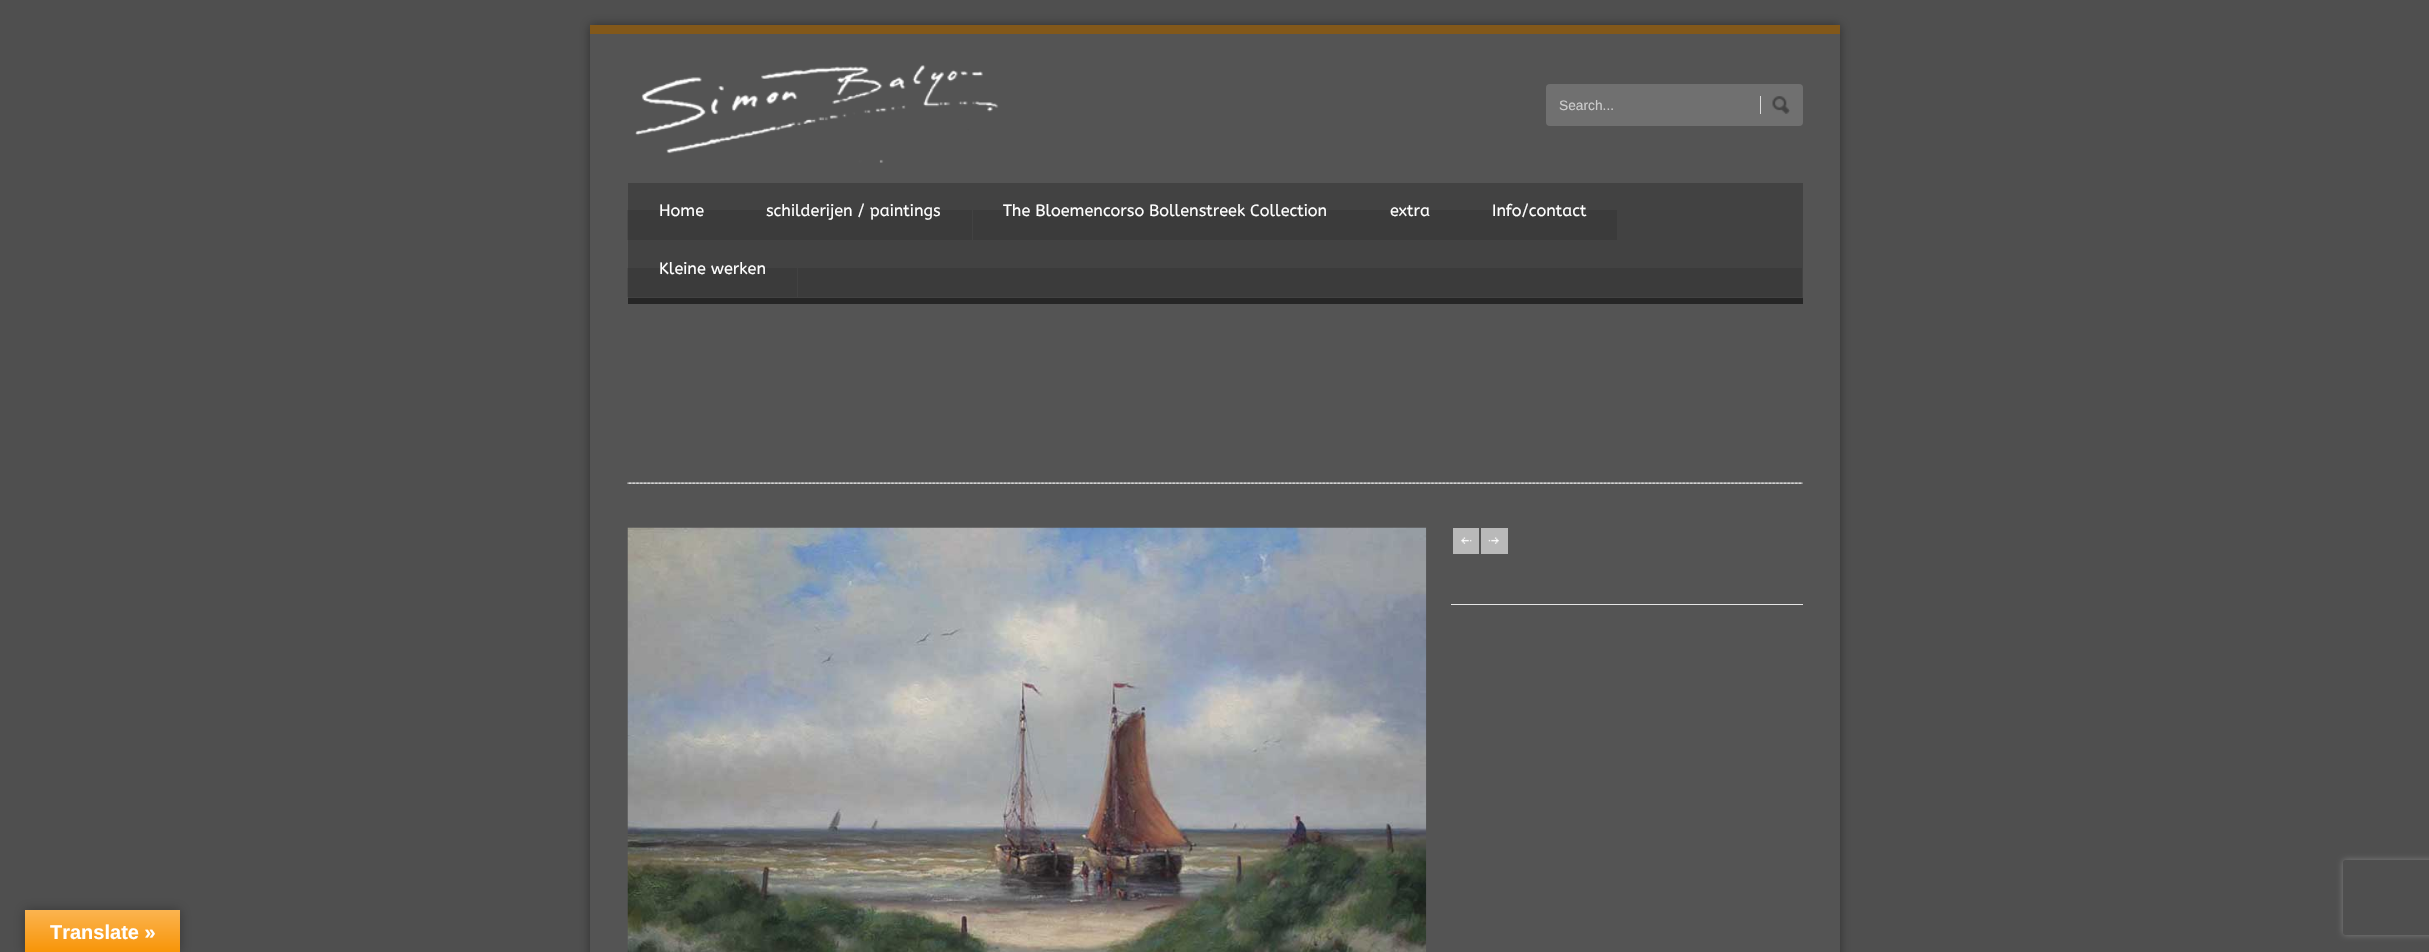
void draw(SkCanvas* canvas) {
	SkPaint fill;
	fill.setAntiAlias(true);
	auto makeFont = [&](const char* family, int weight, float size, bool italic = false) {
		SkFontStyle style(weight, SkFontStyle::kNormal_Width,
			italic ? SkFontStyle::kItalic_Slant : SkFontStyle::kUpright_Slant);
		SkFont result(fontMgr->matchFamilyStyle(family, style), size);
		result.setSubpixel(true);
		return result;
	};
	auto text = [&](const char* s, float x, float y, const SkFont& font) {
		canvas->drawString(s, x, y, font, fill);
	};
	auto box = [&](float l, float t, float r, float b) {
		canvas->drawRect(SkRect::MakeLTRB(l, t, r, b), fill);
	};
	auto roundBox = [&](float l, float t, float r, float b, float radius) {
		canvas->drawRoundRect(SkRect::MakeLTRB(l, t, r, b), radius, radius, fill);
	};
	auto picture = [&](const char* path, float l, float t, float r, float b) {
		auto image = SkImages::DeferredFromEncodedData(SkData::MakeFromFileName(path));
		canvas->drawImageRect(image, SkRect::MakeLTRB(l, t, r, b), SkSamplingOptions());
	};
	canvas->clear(0xFF4F4F4F);
	fill.setColor(0x66000000);
	fill.setMaskFilter(SkMaskFilter::MakeBlur(kNormal_SkBlurStyle, 5));
	canvas->drawRect(SkRect::MakeLTRB(590, 25, 1840, 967), fill);
	fill.setMaskFilter(nullptr);
	fill.setColor(0xFF82581A);
	box(590, 25, 1840, 34);
	fill.setColor(0xFF545454);
	box(590, 34, 1840, 952);
	fill.setColor(0xFF4C4C4C);
	box(627, 210, 628, 240);
	box(627, 268, 628, 297);
	picture("image0.png", 635, 65, 999, 163);
	fill.setColor(0xFF707070);
	roundBox(1546, 84, 1803, 126, 4);
	picture("image1.png", 1772, 96, 1790, 114);
	fill.setColor(0xFFDBDBDB);
	box(1760, 96, 1761, 114);
	fill.setColor(0xFF424242);
	box(628, 183, 1803, 298);
	fill.setColor(0xFF3B3B3B);
	box(628, 210, 972, 240);
	box(798, 268, 1802, 297);
	box(973, 210, 1617, 240);
	box(628, 268, 797, 297);
	picture("image2.png", 627, 482, 1803, 484);
	fill.setColor(0xFF262626);
	box(628, 298, 1803, 304);
	picture("image3.png", 627, 527, 1427, 952);
	fill.setColor(0xFFE6E6E6);
	box(1451, 604, 1803, 605);
	fill.setColor(0xFFB9B9B9);
	box(1453, 528, 1479, 554);
	picture("image4.png", 1461, 537, 1472, 544);
	box(1481, 528, 1508, 554);
	picture("image5.png", 1488, 537, 1499, 544);
	fill.setColor(0x4D000000);
	fill.setMaskFilter(SkMaskFilter::MakeBlur(kNormal_SkBlurStyle, 5.5f));
	canvas->drawRect(SkRect::MakeLTRB(25, 910, 180, 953), fill);
	fill.setMaskFilter(nullptr);
	{
		const SkColor colors[] = {0xFFFBB450, 0xFFF89406};
		const float stops[] = {0, 1};
		const SkPoint ends[] = {{103, 910}, {103, 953}};
		fill.setShader(SkGradientShader::MakeLinear(ends, colors, stops, 2, SkTileMode::kClamp));
		fill.setAlpha(255);
	}
	box(25, 910, 180, 952);
	canvas->save();
	canvas->clipPath(SkPathBuilder(SkPathFillType::kEvenOdd).moveTo(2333, 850).lineTo(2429, 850).lineTo(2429, 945).lineTo(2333, 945).close().moveTo(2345.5f, 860).lineTo(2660.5f, 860).cubicTo(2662, 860, 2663, 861, 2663, 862.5f).lineTo(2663, 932.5f).cubicTo(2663, 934, 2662, 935, 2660.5f, 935).lineTo(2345.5f, 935).cubicTo(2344, 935, 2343, 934, 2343, 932.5f).lineTo(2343, 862.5f).cubicTo(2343, 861, 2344, 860, 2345.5f, 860).close().detach(), true);
	fill.setShader(nullptr);
	fill.setColor(0xFF808080);
	fill.setMaskFilter(SkMaskFilter::MakeBlur(kNormal_SkBlurStyle, 3));
	canvas->drawRoundRect(SkRect::MakeLTRB(2343, 860, 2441, 935), 2.5f, 2.5f, fill);
	fill.setMaskFilter(nullptr);
	canvas->restore();
	auto font1 = makeFont("Liberation Sans", 400, 13.75f);
	fill.setColor(0xFFCCCCCC);
	text("Search...", 1559, 110, font1);
	auto font2 = makeFont("ABeeZee", 400, 16.25f);
	fill.setColor(0xFFFFFFFF);
	text("Home", 659, 216, font2);
	text("schilderijen / paintings", 766, 216, font2);
	text("The Bloemencorso Bollenstreek Collection", 1003, 216, font2);
	text("extra", 1390, 216, font2);
	text("Info/contact", 1492, 216, font2);
	text("Kleine werken", 659, 274, font2);
	auto font3 = makeFont("Liberation Sans", 700, 20);
	text("Translate »", 50, 939, font3);
}
